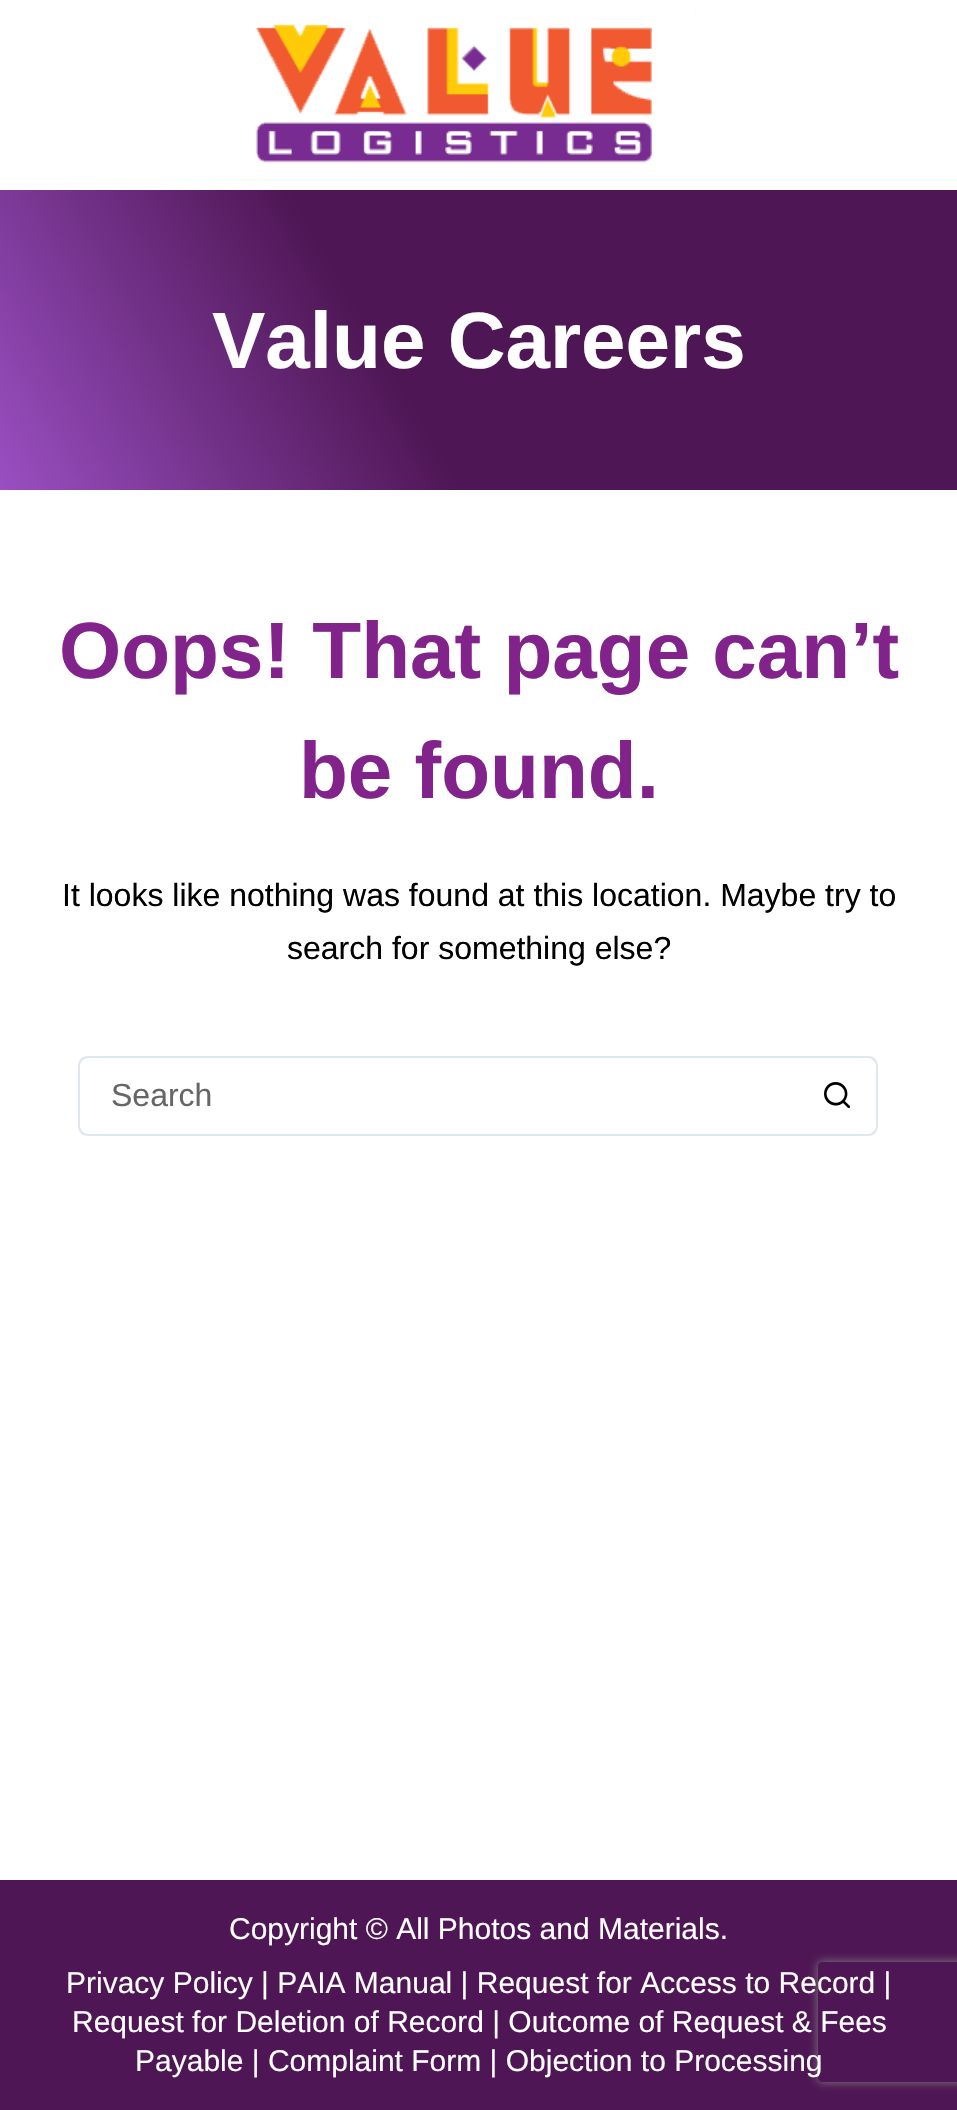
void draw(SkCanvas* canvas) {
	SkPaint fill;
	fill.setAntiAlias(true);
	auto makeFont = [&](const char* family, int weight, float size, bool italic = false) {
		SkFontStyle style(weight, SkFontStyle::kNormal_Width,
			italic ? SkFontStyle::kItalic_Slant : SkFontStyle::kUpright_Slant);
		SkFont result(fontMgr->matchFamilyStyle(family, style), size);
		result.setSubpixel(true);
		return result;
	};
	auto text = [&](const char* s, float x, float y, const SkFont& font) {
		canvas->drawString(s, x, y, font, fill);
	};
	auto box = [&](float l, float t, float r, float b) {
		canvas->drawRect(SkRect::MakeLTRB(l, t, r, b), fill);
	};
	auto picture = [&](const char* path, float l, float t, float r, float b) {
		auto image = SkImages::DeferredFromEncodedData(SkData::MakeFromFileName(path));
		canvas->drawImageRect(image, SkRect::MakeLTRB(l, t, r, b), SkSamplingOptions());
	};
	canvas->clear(0xFFFFFFFF);
	picture("image0.png", 256, 9, 696, 163);
	{
		const SkColor colors[] = {0xFF9A4FC2, 0xFF4E1654};
		const float stops[] = {0, 0.41f};
		const SkPoint ends[] = {{55, 585}, {903, 95}};
		fill.setShader(SkGradientShader::MakeLinear(ends, colors, stops, 2, SkTileMode::kClamp));
		fill.setAlpha(255);
	}
	box(0, 190, 957, 490);
	fill.setShader(nullptr);
	fill.setColor(0xFFE1E8ED);
	canvas->drawPath(SkPathBuilder(SkPathFillType::kEvenOdd).moveTo(88, 1056).lineTo(798, 1056).lineTo(798, 1136).lineTo(88, 1136).cubicTo(82, 1136, 78, 1132, 78, 1126).lineTo(78, 1066).cubicTo(78, 1060, 82, 1056, 88, 1056).close().moveTo(88, 1058).lineTo(798, 1058).lineTo(798, 1134).lineTo(88, 1134).cubicTo(84, 1134, 80, 1130, 80, 1126).lineTo(80, 1066).cubicTo(80, 1062, 84, 1058, 88, 1058).close().detach(), fill);
	canvas->drawPath(SkPathBuilder(SkPathFillType::kEvenOdd).moveTo(798, 1056).lineTo(868, 1056).cubicTo(874, 1056, 878, 1060, 878, 1066).lineTo(878, 1126).cubicTo(878, 1132, 874, 1136, 868, 1136).lineTo(798, 1136).close().moveTo(798, 1058).lineTo(868, 1058).cubicTo(872, 1058, 876, 1062, 876, 1066).lineTo(876, 1126).cubicTo(876, 1130, 872, 1134, 868, 1134).lineTo(798, 1134).close().detach(), fill);
	picture("image1.png", 824, 1082, 850, 1108);
	fill.setColor(0xFF4E1654);
	box(0, 1880, 957, 2110);
	canvas->save();
	canvas->clipPath(SkPathBuilder(SkPathFillType::kEvenOdd).moveTo(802, 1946).lineTo(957, 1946).lineTo(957, 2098).lineTo(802, 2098).close().moveTo(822, 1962).lineTo(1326, 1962).cubicTo(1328, 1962, 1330, 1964, 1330, 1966).lineTo(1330, 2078).cubicTo(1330, 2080, 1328, 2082, 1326, 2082).lineTo(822, 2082).cubicTo(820, 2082, 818, 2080, 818, 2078).lineTo(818, 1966).cubicTo(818, 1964, 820, 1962, 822, 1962).close().detach(), true);
	fill.setColor(0xFF808080);
	fill.setMaskFilter(SkMaskFilter::MakeBlur(kNormal_SkBlurStyle, 5));
	canvas->drawRoundRect(SkRect::MakeLTRB(818, 1962, 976, 2082), 4, 4, fill);
	fill.setMaskFilter(nullptr);
	canvas->restore();
	auto font1 = makeFont("Liberation Sans", 700, 80);
	fill.setColor(0xFFFFFFFF);
	text("Value Careers", 212, 368, font1);
	fill.setColor(0xFF82238C);
	text("Oops! That page can’t", 59, 678, font1);
	text("be found.", 299, 798, font1);
	auto font2 = makeFont("Liberation Sans", 400, 32);
	fill.setColor(0xFF000000);
	text("It looks like nothing was found at this location. Maybe try to", 62, 906, font2);
	text("search for something else?", 287, 959, font2);
	fill.setColor(0xFF666666);
	text("Search", 111, 1106, font2);
	auto font3 = makeFont("Liberation Sans", 400, 30);
	fill.setColor(0xFFFFFFFF);
	text("Copyright © All Photos and Materials.", 229, 1939, font3);
	text("Privacy Policy | PAIA Manual | Request for Access to Record |", 66, 1993, font3);
	text("Request for Deletion of Record | Outcome of Request & Fees", 72, 2032, font3);
	text("Payable | Complaint Form | Objection to Processing", 135, 2071, font3);
}
